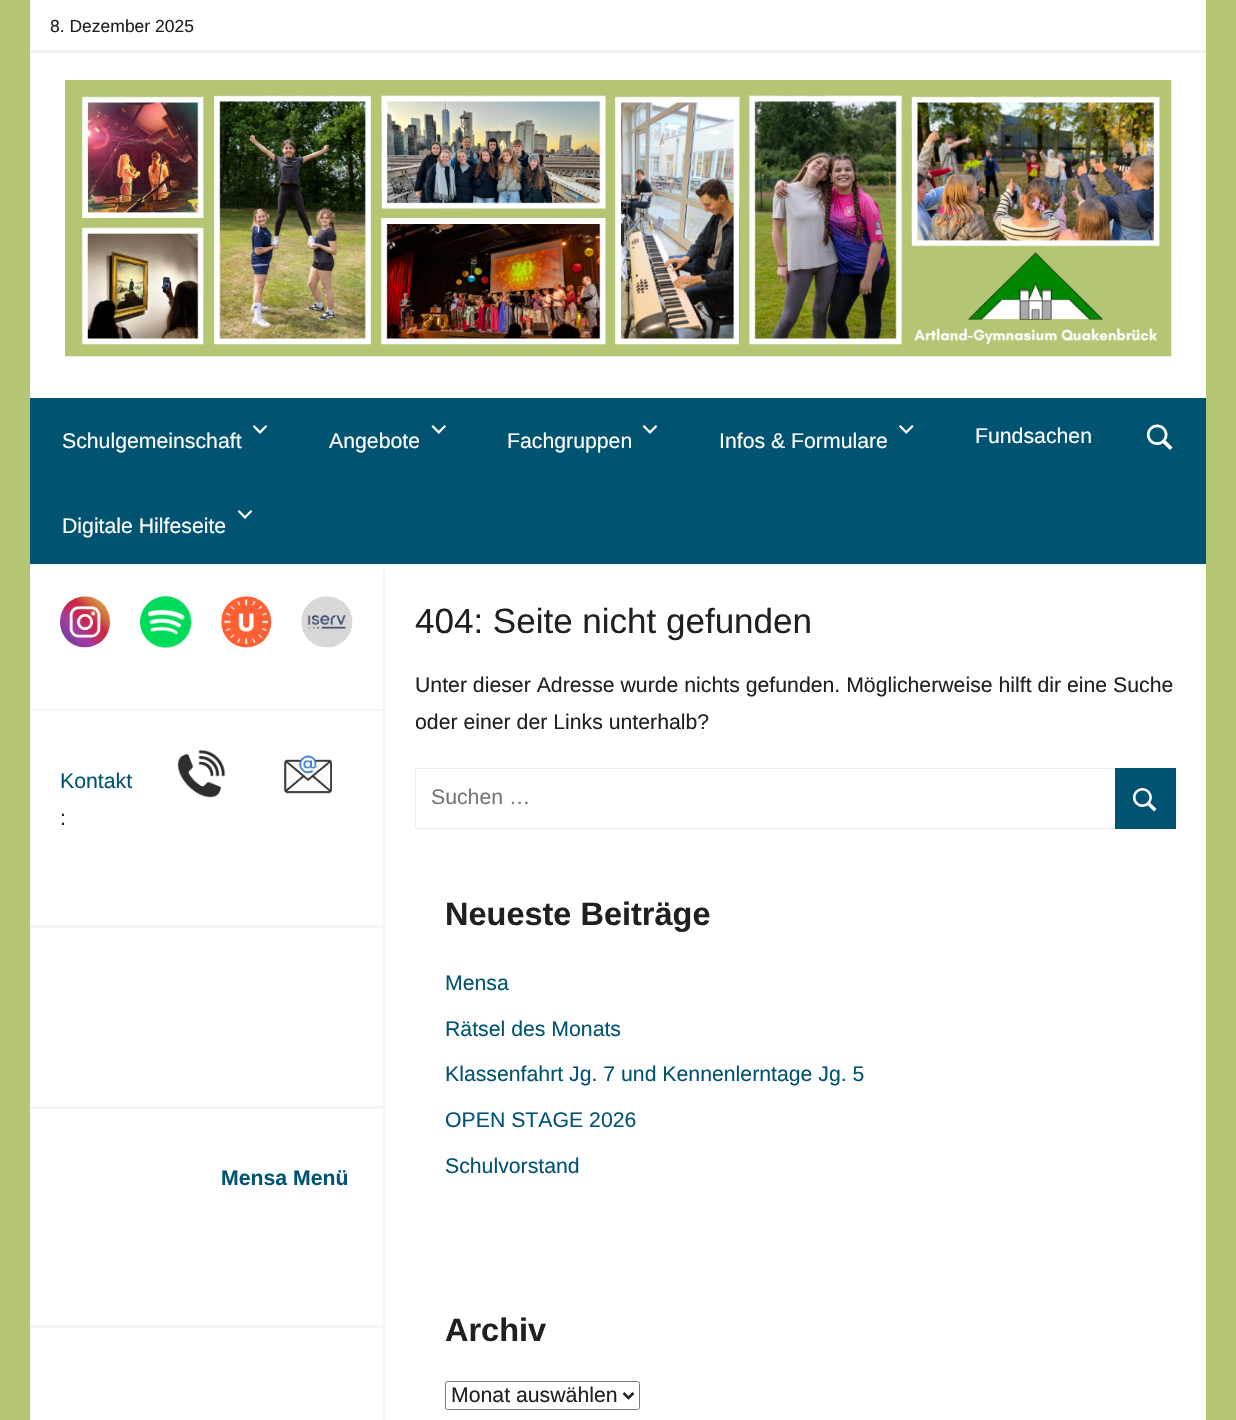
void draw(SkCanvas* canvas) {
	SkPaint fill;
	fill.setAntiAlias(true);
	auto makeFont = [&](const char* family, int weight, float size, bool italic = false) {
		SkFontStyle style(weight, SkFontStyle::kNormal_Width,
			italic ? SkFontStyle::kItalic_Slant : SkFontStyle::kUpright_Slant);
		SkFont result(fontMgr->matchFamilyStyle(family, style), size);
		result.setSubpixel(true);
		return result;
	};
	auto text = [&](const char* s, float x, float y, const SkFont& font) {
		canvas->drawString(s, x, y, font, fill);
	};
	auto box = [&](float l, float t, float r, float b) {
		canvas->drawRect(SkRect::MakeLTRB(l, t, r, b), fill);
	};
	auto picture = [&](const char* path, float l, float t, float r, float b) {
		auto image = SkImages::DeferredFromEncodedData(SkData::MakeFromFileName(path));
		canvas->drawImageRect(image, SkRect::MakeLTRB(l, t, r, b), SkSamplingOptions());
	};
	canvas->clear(0xFFB4C674);
	fill.setColor(0xFFFFFFFF);
	box(30, 0, 1206, 50);
	fill.setColor(0xFFF2F2F2);
	box(30, 50, 1206, 53);
	fill.setColor(0xFFFFFFFF);
	box(30, 53, 1206, 398);
	picture("image0.png", 65, 80, 1172, 357);
	fill.setColor(0xFF005472);
	box(30, 398, 1206, 564);
	picture("image1.png", 252, 425, 268, 434);
	picture("image2.png", 431, 425, 446, 434);
	picture("image3.png", 642, 425, 658, 434);
	picture("image4.png", 899, 425, 914, 434);
	picture("image3.png", 237, 510, 253, 519);
	picture("image5.png", 1146, 424, 1173, 450);
	fill.setColor(0xFFF5F5F5);
	box(30, 564, 1206, 1420);
	fill.setColor(0xFFFFFFFF);
	box(30, 566, 383, 1420);
	fill.setColor(0xFFF5F5F5);
	box(30, 709, 383, 711);
	picture("image6.png", 60, 596, 110, 648);
	picture("image7.png", 140, 596, 192, 648);
	picture("image8.png", 221, 596, 272, 648);
	picture("image9.png", 301, 596, 353, 648);
	box(30, 925, 383, 928);
	picture("image10.png", 177, 749, 226, 798);
	picture("image11.png", 283, 755, 332, 794);
	box(30, 1106, 383, 1109);
	box(30, 1325, 383, 1328);
	fill.setColor(0xFFFFFFFF);
	box(385, 566, 1206, 1420);
	fill.setStyle(SkPaint::kStroke_Style);
	fill.setStrokeWidth(1);
	fill.setColor(0xFFECECEC);
	canvas->drawRect(SkRect::MakeLTRB(415.5f, 768.5f, 1175.5f, 828.5f), fill);
	fill.setStyle(SkPaint::kFill_Style);
	fill.setColor(0xFF005472);
	box(1115, 768, 1176, 829);
	picture("image12.png", 1133, 788, 1157, 812);
	fill.setStyle(SkPaint::kStroke_Style);
	fill.setColor(0xFF767676);
	canvas->drawRoundRect(SkRect::MakeLTRB(445.5f, 1381.5f, 639.5f, 1409.5f), 2, 2, fill);
	fill.setStrokeWidth(2.5f);
	fill.setColor(0xFF202020);
	canvas->drawPath(SkPathBuilder().moveTo(623.5f, 1393).lineTo(628.5f, 1398).lineTo(633.5f, 1393).detach(), fill);
	auto font1 = makeFont("Liberation Sans", 400, 17.5f);
	fill.setStyle(SkPaint::kFill_Style);
	text("8. Dezember 2025", 50, 32, font1);
	auto font2 = makeFont("Liberation Sans", 400, 21.25f);
	fill.setColor(0xFFFFFFFF);
	text("Schulgemeinschaft", 62, 448, font2);
	text("Angebote", 329, 448, font2);
	text("Fachgruppen", 507, 448, font2);
	text("Infos & Formulare", 719, 448, font2);
	text("Fundsachen", 975, 443, font2);
	text("Digitale Hilfeseite", 62, 533, font2);
	fill.setColor(0xFF005472);
	text("Kontakt", 60, 788, font2);
	fill.setColor(0xFF202020);
	text(":", 60, 825, font2);
	auto font3 = makeFont("Liberation Sans", 700, 21.25f);
	fill.setColor(0xFF005472);
	text("Mensa Menü", 221, 1185, font3);
	auto font4 = makeFont("Liberation Sans", 400, 35);
	fill.setColor(0xFF202020);
	text("404: Seite nicht gefunden", 415, 633, font4);
	text("Unter dieser Adresse wurde nichts gefunden. Möglicherweise hilft dir eine Suche", 415, 692, font2);
	text("oder einer der Links unterhalb?", 415, 729, font2);
	fill.setColor(0xFF757575);
	text("Suchen …", 431, 804, font2);
	auto font5 = makeFont("Liberation Sans", 700, 32.5f);
	fill.setColor(0xFF202020);
	text("Neueste Beiträge", 445, 925, font5);
	fill.setColor(0xFF005472);
	text("Mensa", 445, 990, font2);
	text("Rätsel des Monats", 445, 1036, font2);
	text("Klassenfahrt Jg. 7 und Kennenlerntage Jg. 5", 445, 1081, font2);
	text("OPEN STAGE 2026", 445, 1127, font2);
	text("Schulvorstand", 445, 1173, font2);
	fill.setColor(0xFF202020);
	text("Archiv", 445, 1341, font5);
	text("Monat auswählen", 451, 1402, font2);
}
